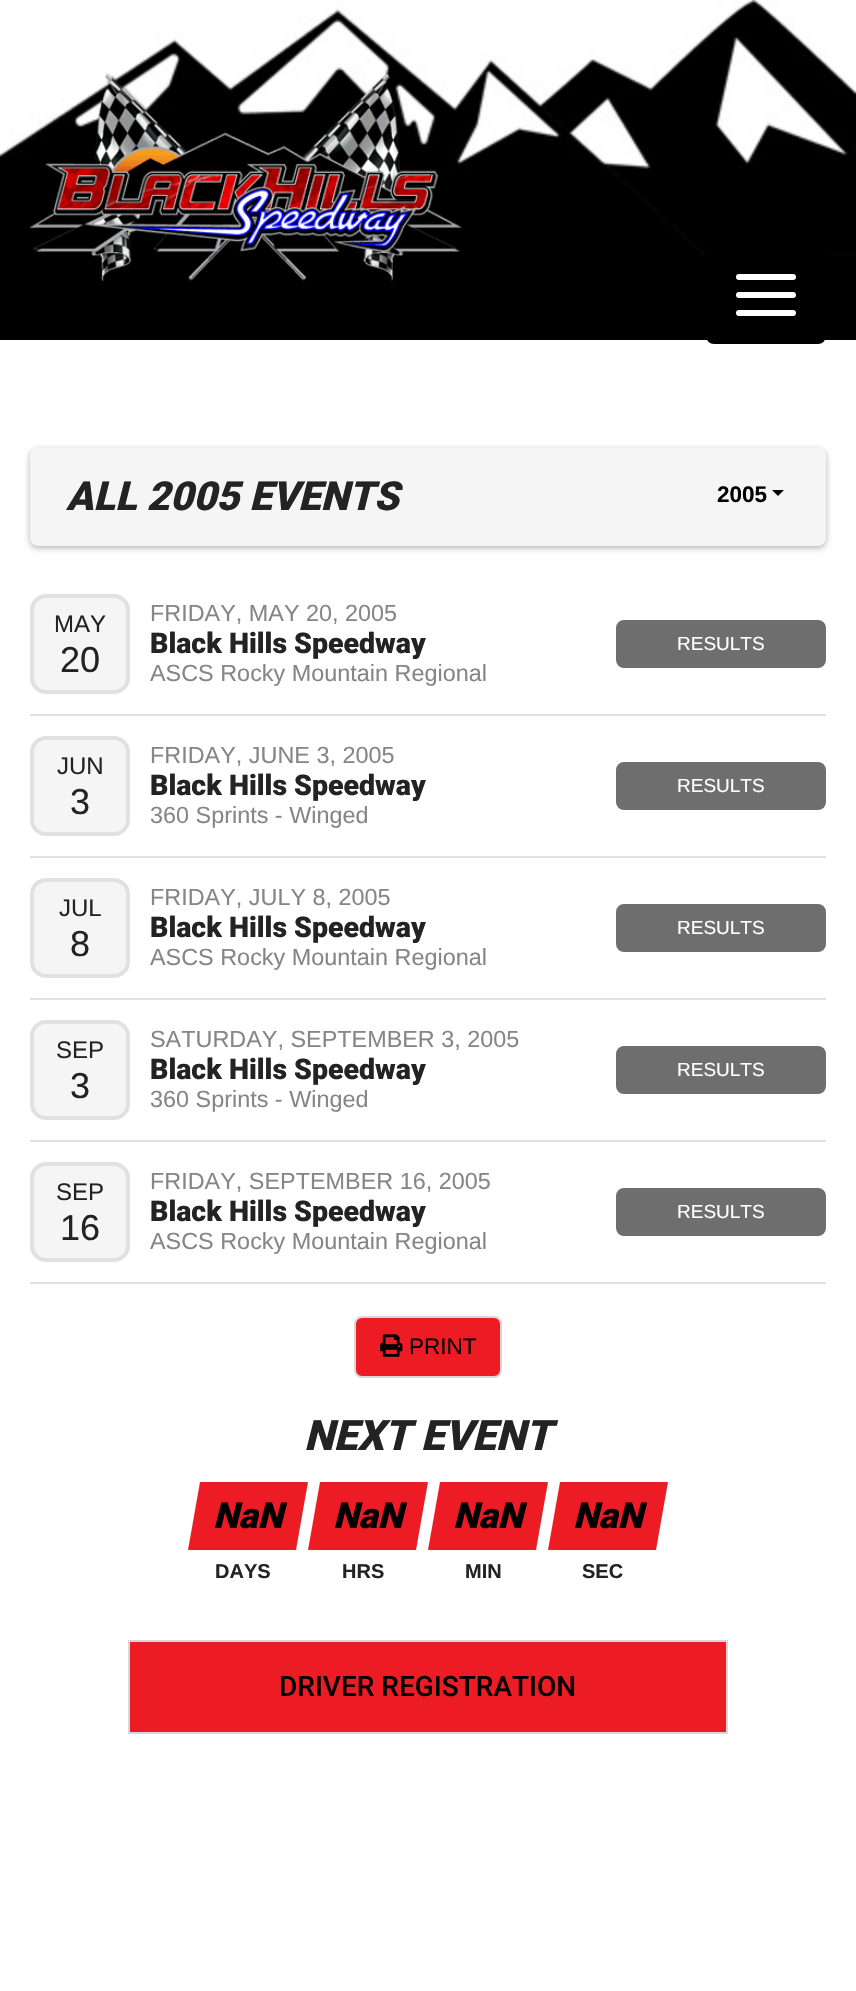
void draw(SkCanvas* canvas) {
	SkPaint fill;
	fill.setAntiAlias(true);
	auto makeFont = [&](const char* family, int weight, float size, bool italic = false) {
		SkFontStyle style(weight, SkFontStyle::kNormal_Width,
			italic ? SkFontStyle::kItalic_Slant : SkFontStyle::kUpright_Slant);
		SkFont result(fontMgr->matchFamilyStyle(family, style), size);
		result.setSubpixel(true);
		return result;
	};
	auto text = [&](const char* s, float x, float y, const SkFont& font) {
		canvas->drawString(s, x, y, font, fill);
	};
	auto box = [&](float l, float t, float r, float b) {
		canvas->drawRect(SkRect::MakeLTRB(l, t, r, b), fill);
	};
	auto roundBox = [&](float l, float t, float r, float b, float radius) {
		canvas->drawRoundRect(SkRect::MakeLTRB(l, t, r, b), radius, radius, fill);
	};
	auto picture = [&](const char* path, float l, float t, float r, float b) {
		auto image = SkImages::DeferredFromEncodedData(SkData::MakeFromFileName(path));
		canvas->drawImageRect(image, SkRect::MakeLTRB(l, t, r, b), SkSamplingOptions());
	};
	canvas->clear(0xFFFFFFFF);
	picture("image0.png", 0, 0, 856, 340);
	picture("image1.png", 30, 74, 462, 282);
	fill.setColor(0xFF000000);
	roundBox(706, 244, 826, 344, 8);
	fill.setColor(0xFFFFFFFF);
	roundBox(736, 274, 796, 280, 3);
	roundBox(736, 292, 796, 298, 3);
	roundBox(736, 310, 796, 316, 3);
	fill.setColor(0x591F1F21);
	fill.setMaskFilter(SkMaskFilter::MakeBlur(kNormal_SkBlurStyle, 3));
	canvas->drawRoundRect(SkRect::MakeLTRB(30, 450, 826, 548), 8, 8, fill);
	fill.setMaskFilter(nullptr);
	fill.setColor(0xFFF5F5F5);
	roundBox(30, 448, 826, 546, 8);
	fill.setColor(0xFF000000);
	canvas->drawPath(SkPathBuilder().moveTo(772, 490).lineTo(784, 490).lineTo(778, 496).close().detach(), fill);
	fill.setColor(0xFFE1E1E1);
	box(30, 714, 826, 716);
	fill.setColor(0xFFF5F5F5);
	canvas->drawRoundRect(SkRect::MakeLTRB(32, 596, 128, 692), 14, 14, fill);
	fill.setStyle(SkPaint::kStroke_Style);
	fill.setStrokeWidth(4);
	fill.setColor(0xFFE1E1E1);
	canvas->drawRoundRect(SkRect::MakeLTRB(32, 596, 128, 692), 14, 14, fill);
	fill.setStyle(SkPaint::kFill_Style);
	fill.setColor(0xFF6E6E6E);
	canvas->drawRoundRect(SkRect::MakeLTRB(617, 621, 825, 667), 7, 7, fill);
	fill.setStyle(SkPaint::kStroke_Style);
	fill.setStrokeWidth(2);
	canvas->drawRoundRect(SkRect::MakeLTRB(617, 621, 825, 667), 7, 7, fill);
	fill.setStyle(SkPaint::kFill_Style);
	fill.setColor(0xFFE1E1E1);
	box(30, 856, 826, 858);
	fill.setColor(0xFFF5F5F5);
	canvas->drawRoundRect(SkRect::MakeLTRB(32, 738, 128, 834), 14, 14, fill);
	fill.setStyle(SkPaint::kStroke_Style);
	fill.setStrokeWidth(4);
	fill.setColor(0xFFE1E1E1);
	canvas->drawRoundRect(SkRect::MakeLTRB(32, 738, 128, 834), 14, 14, fill);
	fill.setStyle(SkPaint::kFill_Style);
	fill.setColor(0xFF6E6E6E);
	canvas->drawRoundRect(SkRect::MakeLTRB(617, 763, 825, 809), 7, 7, fill);
	fill.setStyle(SkPaint::kStroke_Style);
	fill.setStrokeWidth(2);
	canvas->drawRoundRect(SkRect::MakeLTRB(617, 763, 825, 809), 7, 7, fill);
	fill.setStyle(SkPaint::kFill_Style);
	fill.setColor(0xFFE1E1E1);
	box(30, 998, 826, 1000);
	fill.setColor(0xFFF5F5F5);
	canvas->drawRoundRect(SkRect::MakeLTRB(32, 880, 128, 976), 14, 14, fill);
	fill.setStyle(SkPaint::kStroke_Style);
	fill.setStrokeWidth(4);
	fill.setColor(0xFFE1E1E1);
	canvas->drawRoundRect(SkRect::MakeLTRB(32, 880, 128, 976), 14, 14, fill);
	fill.setStyle(SkPaint::kFill_Style);
	fill.setColor(0xFF6E6E6E);
	canvas->drawRoundRect(SkRect::MakeLTRB(617, 905, 825, 951), 7, 7, fill);
	fill.setStyle(SkPaint::kStroke_Style);
	fill.setStrokeWidth(2);
	canvas->drawRoundRect(SkRect::MakeLTRB(617, 905, 825, 951), 7, 7, fill);
	fill.setStyle(SkPaint::kFill_Style);
	fill.setColor(0xFFE1E1E1);
	box(30, 1140, 826, 1142);
	fill.setColor(0xFFF5F5F5);
	canvas->drawRoundRect(SkRect::MakeLTRB(32, 1022, 128, 1118), 14, 14, fill);
	fill.setStyle(SkPaint::kStroke_Style);
	fill.setStrokeWidth(4);
	fill.setColor(0xFFE1E1E1);
	canvas->drawRoundRect(SkRect::MakeLTRB(32, 1022, 128, 1118), 14, 14, fill);
	fill.setStyle(SkPaint::kFill_Style);
	fill.setColor(0xFF6E6E6E);
	canvas->drawRoundRect(SkRect::MakeLTRB(617, 1047, 825, 1093), 7, 7, fill);
	fill.setStyle(SkPaint::kStroke_Style);
	fill.setStrokeWidth(2);
	canvas->drawRoundRect(SkRect::MakeLTRB(617, 1047, 825, 1093), 7, 7, fill);
	fill.setStyle(SkPaint::kFill_Style);
	fill.setColor(0xFFE1E1E1);
	box(30, 1282, 826, 1284);
	fill.setColor(0xFFF5F5F5);
	canvas->drawRoundRect(SkRect::MakeLTRB(32, 1164, 128, 1260), 14, 14, fill);
	fill.setStyle(SkPaint::kStroke_Style);
	fill.setStrokeWidth(4);
	fill.setColor(0xFFE1E1E1);
	canvas->drawRoundRect(SkRect::MakeLTRB(32, 1164, 128, 1260), 14, 14, fill);
	fill.setStyle(SkPaint::kFill_Style);
	fill.setColor(0xFF6E6E6E);
	canvas->drawRoundRect(SkRect::MakeLTRB(617, 1189, 825, 1235), 7, 7, fill);
	fill.setStyle(SkPaint::kStroke_Style);
	fill.setStrokeWidth(2);
	canvas->drawRoundRect(SkRect::MakeLTRB(617, 1189, 825, 1235), 7, 7, fill);
	fill.setStyle(SkPaint::kFill_Style);
	fill.setColor(0xFFED1C24);
	canvas->drawRoundRect(SkRect::MakeLTRB(355, 1317, 501, 1377), 7, 7, fill);
	fill.setStyle(SkPaint::kStroke_Style);
	fill.setColor(0xFFD7D7D7);
	canvas->drawRoundRect(SkRect::MakeLTRB(355, 1317, 501, 1377), 7, 7, fill);
	picture("image2.png", 380, 1334, 403, 1357);
	fill.setStyle(SkPaint::kFill_Style);
	fill.setColor(0xFFED1C24);
	canvas->drawPath(SkPathBuilder().moveTo(308, 1482).lineTo(296, 1550).lineTo(188, 1550).lineTo(200, 1482).close().detach(), fill);
	canvas->drawPath(SkPathBuilder().moveTo(428, 1482).lineTo(416, 1550).lineTo(308, 1550).lineTo(320, 1482).close().detach(), fill);
	canvas->drawPath(SkPathBuilder().moveTo(548, 1482).lineTo(536, 1550).lineTo(428, 1550).lineTo(440, 1482).close().detach(), fill);
	canvas->drawPath(SkPathBuilder().moveTo(668, 1482).lineTo(656, 1550).lineTo(548, 1550).lineTo(560, 1482).close().detach(), fill);
	canvas->drawRect(SkRect::MakeLTRB(129, 1641, 727, 1733), fill);
	fill.setStyle(SkPaint::kStroke_Style);
	fill.setColor(0xFFD7D7D7);
	canvas->drawRect(SkRect::MakeLTRB(129, 1641, 727, 1733), fill);
	auto font1 = makeFont("Roboto", 900, 40, true);
	fill.setStyle(SkPaint::kFill_Style);
	fill.setColor(0xFF232323);
	text("ALL 2005 EVENTS", 66, 510, font1);
	auto font2 = makeFont("Liberation Sans", 700, 22.5f);
	fill.setColor(0xFF000000);
	text("2005", 717, 502, font2);
	auto font3 = makeFont("Liberation Sans", 400, 24);
	fill.setColor(0xFF232323);
	text("MAY", 54, 632, font3);
	auto font4 = makeFont("Liberation Sans", 400, 36);
	text("20", 60, 672, font4);
	auto font5 = makeFont("Liberation Sans", 400, 23.4f);
	fill.setColor(0xFF868686);
	text("FRIDAY, MAY 20, 2005", 150, 621, font5);
	auto font6 = makeFont("Roboto", 900, 28.5f);
	fill.setColor(0xFF232323);
	text("Black Hills Speedway", 150, 653, font6);
	fill.setColor(0xFF868686);
	text("ASCS Rocky Mountain Regional", 150, 681, font5);
	auto font7 = makeFont("Liberation Sans", 400, 19);
	fill.setColor(0xFFFFFFFF);
	text("RESULTS", 677, 650, font7);
	fill.setColor(0xFF232323);
	text("JUN", 57, 774, font3);
	text("3", 70, 814, font4);
	fill.setColor(0xFF868686);
	text("FRIDAY, JUNE 3, 2005", 150, 763, font5);
	fill.setColor(0xFF232323);
	text("Black Hills Speedway", 150, 795, font6);
	fill.setColor(0xFF868686);
	text("360 Sprints - Winged", 150, 823, font5);
	fill.setColor(0xFFFFFFFF);
	text("RESULTS", 677, 792, font7);
	fill.setColor(0xFF232323);
	text("JUL", 59, 916, font3);
	text("8", 70, 956, font4);
	fill.setColor(0xFF868686);
	text("FRIDAY, JULY 8, 2005", 150, 905, font5);
	fill.setColor(0xFF232323);
	text("Black Hills Speedway", 150, 937, font6);
	fill.setColor(0xFF868686);
	text("ASCS Rocky Mountain Regional", 150, 965, font5);
	fill.setColor(0xFFFFFFFF);
	text("RESULTS", 677, 934, font7);
	fill.setColor(0xFF232323);
	text("SEP", 56, 1058, font3);
	text("3", 70, 1098, font4);
	fill.setColor(0xFF868686);
	text("SATURDAY, SEPTEMBER 3, 2005", 150, 1047, font5);
	fill.setColor(0xFF232323);
	text("Black Hills Speedway", 150, 1079, font6);
	fill.setColor(0xFF868686);
	text("360 Sprints - Winged", 150, 1107, font5);
	fill.setColor(0xFFFFFFFF);
	text("RESULTS", 677, 1076, font7);
	fill.setColor(0xFF232323);
	text("SEP", 56, 1200, font3);
	text("16", 60, 1240, font4);
	fill.setColor(0xFF868686);
	text("FRIDAY, SEPTEMBER 16, 2005", 150, 1189, font5);
	fill.setColor(0xFF232323);
	text("Black Hills Speedway", 150, 1221, font6);
	fill.setColor(0xFF868686);
	text("ASCS Rocky Mountain Regional", 150, 1249, font5);
	fill.setColor(0xFFFFFFFF);
	text("RESULTS", 677, 1218, font7);
	auto font8 = makeFont("Liberation Sans", 400, 22.5f);
	fill.setColor(0xFF000000);
	text("PRINT", 409, 1354, font8);
	auto font9 = makeFont("Roboto", 900, 42, true);
	fill.setColor(0xFF232323);
	text("NEXT EVENT", 304, 1450, font9);
	auto font10 = makeFont("Roboto", 900, 36, true);
	fill.setColor(0xFF000000);
	text("NaN", 213, 1528, font10);
	text("NaN", 333, 1528, font10);
	text("NaN", 453, 1528, font10);
	text("NaN", 573, 1528, font10);
	auto font11 = makeFont("Liberation Sans", 700, 20);
	fill.setColor(0xFF232323);
	text("DAYS", 215, 1578, font11);
	text("HRS", 342, 1578, font11);
	text("MIN", 465, 1578, font11);
	text("SEC", 582, 1578, font11);
	auto font12 = makeFont("Roboto", 500, 28);
	fill.setColor(0xFF000000);
	text("DRIVER REGISTRATION", 279, 1696, font12);
}
